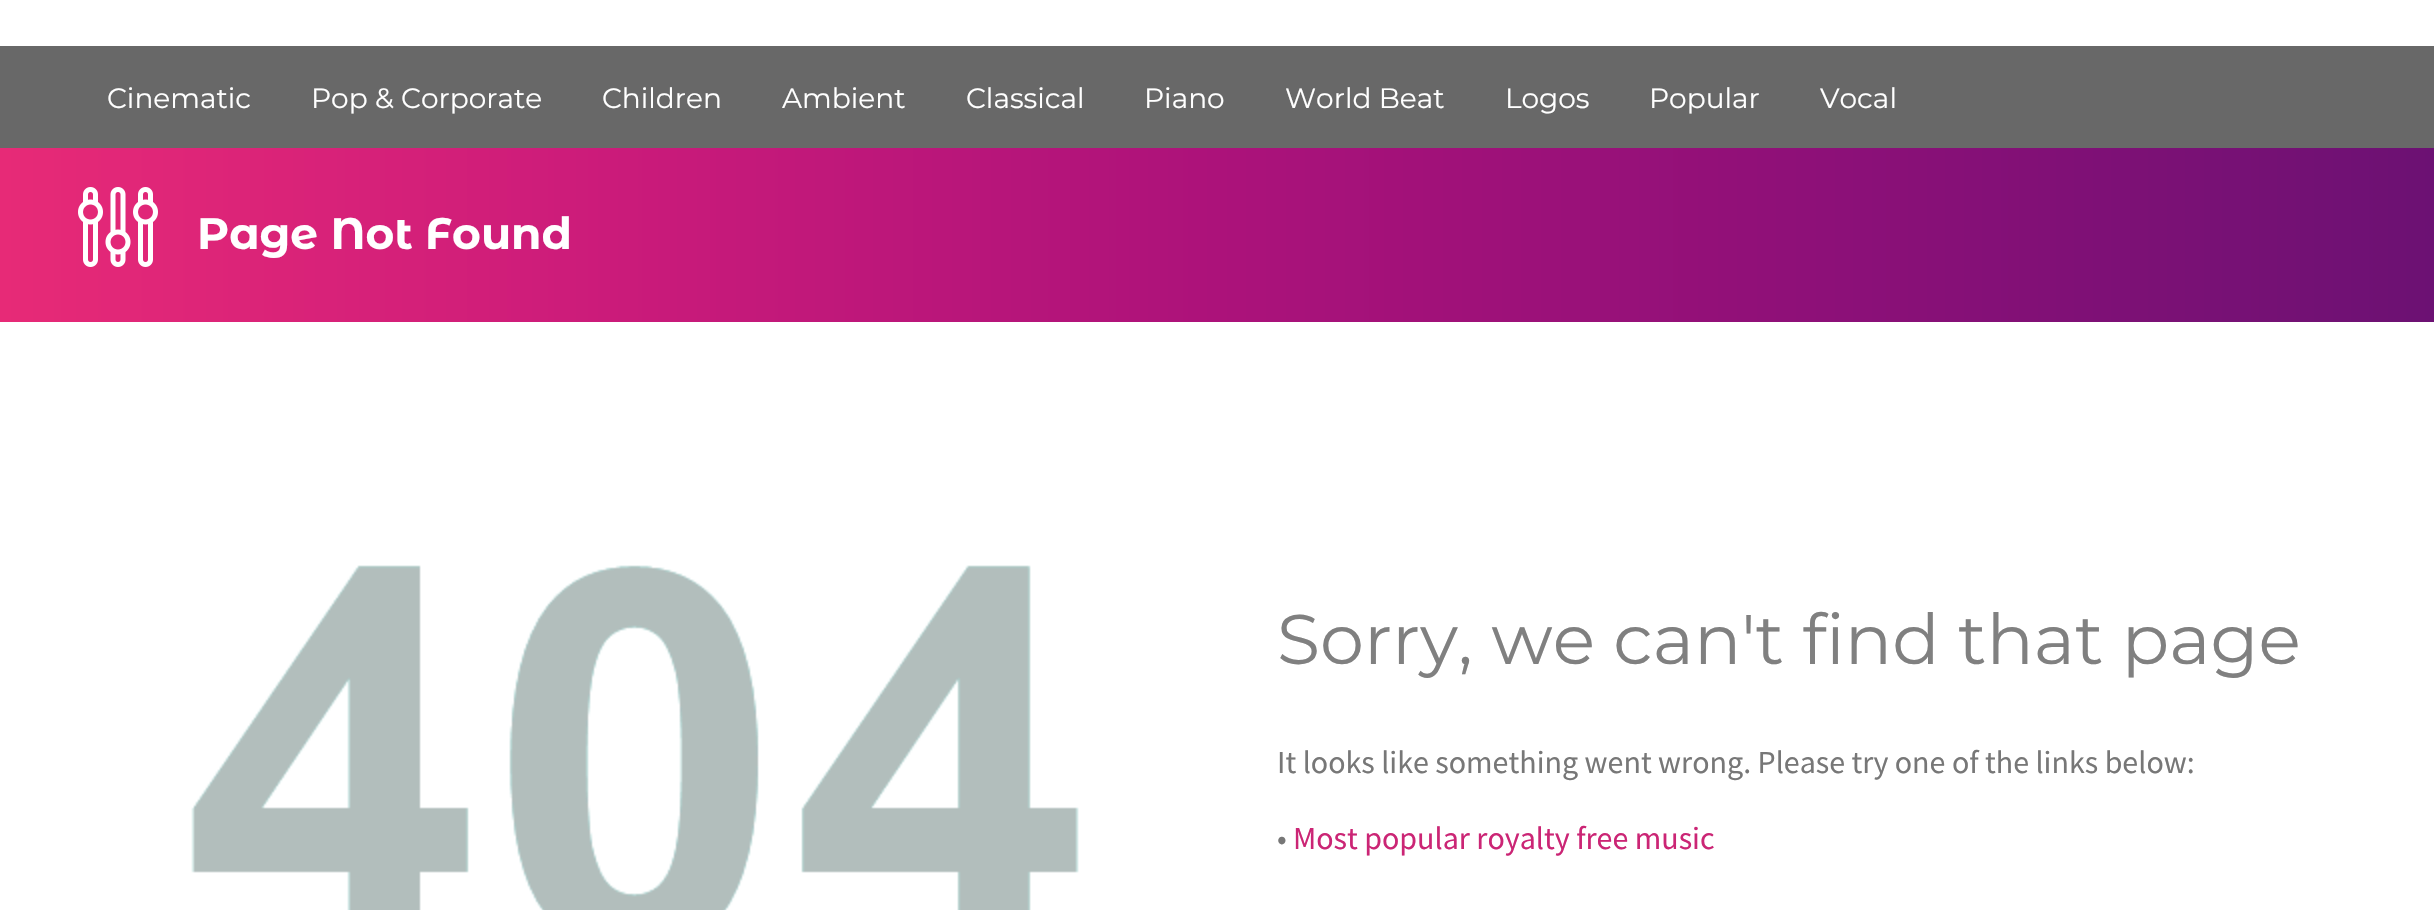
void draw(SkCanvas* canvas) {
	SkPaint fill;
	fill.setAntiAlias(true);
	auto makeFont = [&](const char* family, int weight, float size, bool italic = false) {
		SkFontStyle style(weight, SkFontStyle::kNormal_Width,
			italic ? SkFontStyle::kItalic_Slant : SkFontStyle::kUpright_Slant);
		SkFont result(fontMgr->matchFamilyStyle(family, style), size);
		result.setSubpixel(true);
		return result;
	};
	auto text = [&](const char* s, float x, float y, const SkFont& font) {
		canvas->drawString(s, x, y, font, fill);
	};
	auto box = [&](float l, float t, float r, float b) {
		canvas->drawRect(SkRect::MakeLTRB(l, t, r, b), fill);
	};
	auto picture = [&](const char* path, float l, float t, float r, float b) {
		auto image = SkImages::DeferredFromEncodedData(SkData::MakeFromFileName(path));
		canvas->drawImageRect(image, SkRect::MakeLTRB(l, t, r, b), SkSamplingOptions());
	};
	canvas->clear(0xFFFFFFFF);
	fill.setColor(0xFF686868);
	box(0, 46, 2434, 148);
	{
		const SkColor colors[] = {0xFFE72A77, 0xFFCB1B7A, 0xFFAC127A, 0xFF8D1078, 0xFF6C1173};
		const float stops[] = {0, 0.25f, 0.5f, 0.75f, 1};
		const SkPoint ends[] = {{0, 235}, {2434, 235}};
		fill.setShader(SkGradientShader::MakeLinear(ends, colors, stops, 5, SkTileMode::kClamp));
		fill.setAlpha(255);
	}
	box(0, 148, 2434, 322);
	picture("image0.png", 78, 187, 158, 267);
	picture("image1.png", 191, 565, 1079, 910);
	auto font1 = makeFont("Montserrat", 400, 28);
	fill.setShader(nullptr);
	fill.setColor(0xFFFFFFFF);
	text("Cinematic", 107, 108, font1);
	text("Pop & Corporate", 311, 108, font1);
	text("Children", 602, 108, font1);
	text("Ambient", 782, 108, font1);
	text("Classical", 966, 108, font1);
	text("Piano", 1144, 108, font1);
	text("World Beat", 1285, 108, font1);
	text("Logos", 1505, 108, font1);
	text("Popular", 1649, 108, font1);
	text("Vocal", 1820, 108, font1);
	auto font2 = makeFont("Montserrat Alternates", 700, 44);
	text("Page Not Found", 197, 249, font2);
	auto font3 = makeFont("Montserrat", 400, 70);
	fill.setColor(0xFF808080);
	text("Sorry, we can't find that page", 1277, 664, font3);
	auto font4 = makeFont("Source Sans Pro", 400, 32);
	fill.setColor(0xFF777777);
	text("It looks like something went wrong. Please try one of the links below:", 1277, 773, font4);
	text("•", 1277, 849, font4);
	fill.setColor(0xFFCB2575);
	text("Most popular royalty free music", 1293, 849, font4);
}
